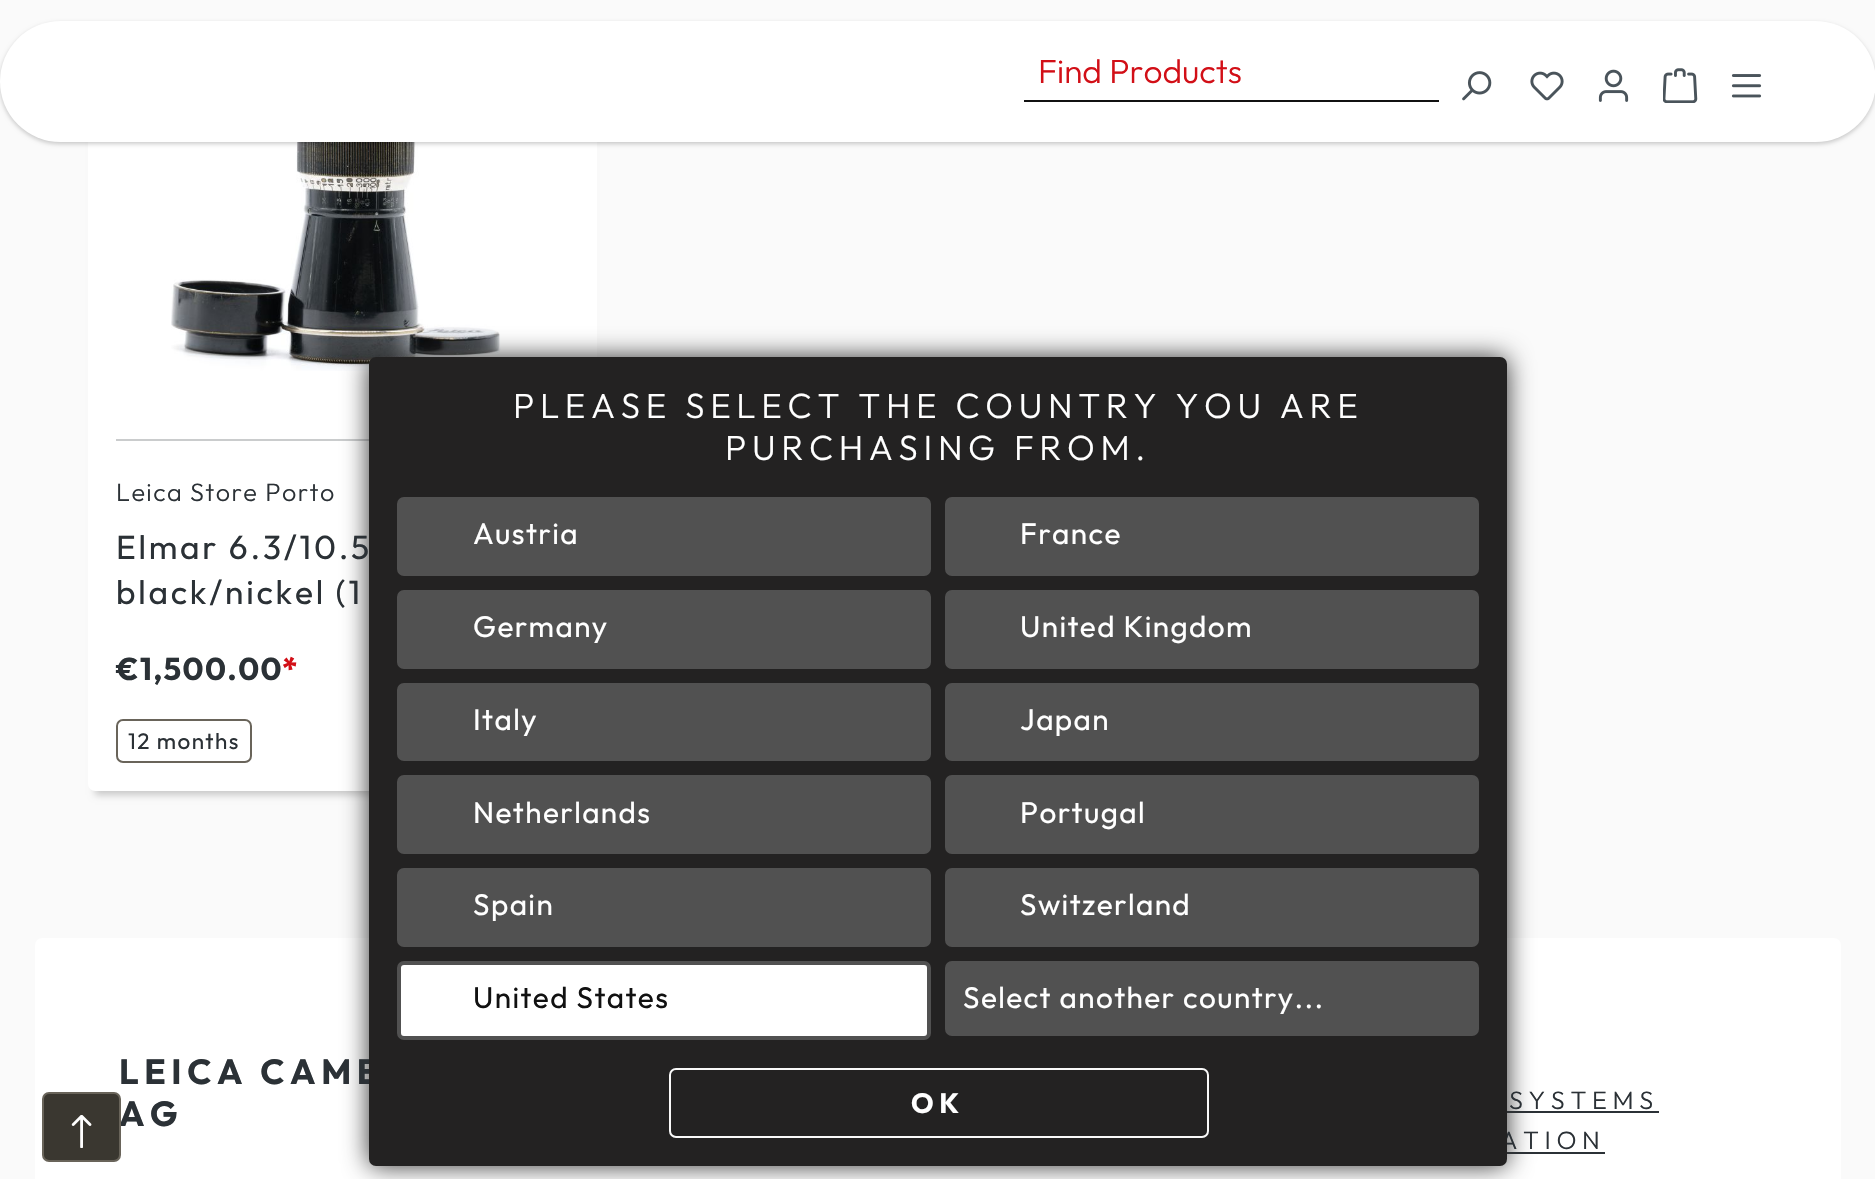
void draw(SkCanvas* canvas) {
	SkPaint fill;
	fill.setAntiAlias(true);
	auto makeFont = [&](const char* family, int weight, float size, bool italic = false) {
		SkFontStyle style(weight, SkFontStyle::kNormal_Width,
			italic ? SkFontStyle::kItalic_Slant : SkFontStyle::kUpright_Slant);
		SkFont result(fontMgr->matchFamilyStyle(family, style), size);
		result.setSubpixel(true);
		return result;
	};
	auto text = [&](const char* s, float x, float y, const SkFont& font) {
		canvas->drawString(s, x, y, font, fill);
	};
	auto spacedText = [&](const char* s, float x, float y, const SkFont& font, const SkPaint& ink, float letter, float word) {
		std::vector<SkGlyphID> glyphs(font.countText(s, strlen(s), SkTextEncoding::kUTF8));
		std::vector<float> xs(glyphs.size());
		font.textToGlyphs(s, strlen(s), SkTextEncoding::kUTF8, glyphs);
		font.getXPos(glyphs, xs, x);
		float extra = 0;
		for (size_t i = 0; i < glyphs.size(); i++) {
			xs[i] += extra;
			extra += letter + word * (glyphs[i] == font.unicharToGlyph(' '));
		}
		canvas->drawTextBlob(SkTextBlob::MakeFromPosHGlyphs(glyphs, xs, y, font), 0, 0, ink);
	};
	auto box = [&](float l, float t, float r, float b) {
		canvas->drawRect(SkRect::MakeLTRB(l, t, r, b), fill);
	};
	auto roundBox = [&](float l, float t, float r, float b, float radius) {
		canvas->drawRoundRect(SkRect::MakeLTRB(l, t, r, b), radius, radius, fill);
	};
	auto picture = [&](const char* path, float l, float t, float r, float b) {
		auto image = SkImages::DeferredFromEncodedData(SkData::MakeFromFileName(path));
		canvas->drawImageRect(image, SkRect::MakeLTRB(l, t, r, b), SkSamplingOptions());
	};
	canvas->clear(0xFFFAFAFA);
	fill.setColor(0x33000000);
	fill.setMaskFilter(SkMaskFilter::MakeBlur(kNormal_SkBlurStyle, 3.5f));
	canvas->drawRect(SkRect::MakeLTRB(95, 47, 590, 795), fill);
	fill.setMaskFilter(nullptr);
	fill.setColor(0xFFFFFFFF);
	roundBox(88, 30, 597, 791, 7);
	picture("image5.png", 171, 142, 501, 371);
	fill.setColor(0x33000000);
	fill.setMaskFilter(SkMaskFilter::MakeBlur(kNormal_SkBlurStyle, 2));
	canvas->drawRoundRect(SkRect::MakeLTRB(0, 23, 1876, 144), 60.5f, 60.5f, fill);
	fill.setMaskFilter(nullptr);
	fill.setColor(0xFFFFFFFF);
	roundBox(0, 21, 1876, 142, 60.5f);
	fill.setColor(0xFF111111);
	box(1024, 100, 1439, 102);
	picture("image0.png", 1462, 71, 1492, 101);
	picture("image1.png", 1530, 71, 1564, 101);
	picture("image2.png", 1598, 69, 1629, 102);
	picture("image3.png", 1663, 68, 1698, 103);
	picture("image4.png", 1731, 74, 1762, 98);
	fill.setColor(0xFFCACCCD);
	box(116, 439, 369, 441);
	fill.setStyle(SkPaint::kStroke_Style);
	fill.setStrokeWidth(2);
	fill.setColor(0xFF69645A);
	canvas->drawRoundRect(SkRect::MakeLTRB(117, 720, 251, 762), 6, 6, fill);
	fill.setStyle(SkPaint::kFill_Style);
	fill.setColor(0xFFFFFFFF);
	roundBox(35, 938, 1841, 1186, 7);
	fill.setColor(0xFF2B3136);
	box(1507, 1111, 1659, 1113);
	box(1507, 1152, 1605, 1154);
	fill.setColor(0xFF333333);
	fill.setMaskFilter(SkMaskFilter::MakeBlur(kNormal_SkBlurStyle, 13));
	canvas->drawRoundRect(SkRect::MakeLTRB(369, 357, 1507, 1166), 7, 7, fill);
	fill.setMaskFilter(nullptr);
	auto font1 = makeFont("Outfit", 300, 33.5f);
	fill.setColor(0xFFD20F17);
	text("Find Products", 1038, 83, font1);
	auto font2 = makeFont("Outfit", 300, 25.25f);
	fill.setColor(0xFF2B3136);
	spacedText("Leica Store Porto", 116, 501, font2, fill, 1.4f, 0);
	auto font3 = makeFont("Outfit", 400, 33.5f);
	spacedText("Elmar 6.3/10.5", 116, 559, font3, fill, 2.75f, 0);
	spacedText("black/nickel (1", 116, 604, font3, fill, 2.75f, 0);
	auto font4 = makeFont("Outfit", 700, 31.5f);
	spacedText("€1,500.00", 116, 680, font4, fill, 1.4f, 0);
	fill.setColor(0xFFD20F17);
	spacedText("*", 282, 680, font4, fill, 1.4f, 0);
	auto font5 = makeFont("Outfit", 400, 22.5f);
	fill.setColor(0xFF2B3136);
	spacedText("12 months", 128, 749, font5, fill, 1.4f, 0);
	auto font6 = makeFont("Outfit", 700, 35);
	spacedText("LEICA CAME", 119, 1084, font6, fill, 5.6f, 0);
	spacedText("AG", 119, 1126, font6, fill, 5.6f, 0);
	fill.setColor(0xFF3A3730);
	canvas->drawRoundRect(SkRect::MakeLTRB(43, 1093, 120, 1161), 6, 6, fill);
	fill.setStyle(SkPaint::kStroke_Style);
	fill.setColor(0xFF69645A);
	canvas->drawRoundRect(SkRect::MakeLTRB(43, 1093, 120, 1161), 6, 6, fill);
	picture("image6.png", 71, 1115, 92, 1148);
	fill.setStyle(SkPaint::kFill_Style);
	fill.setColor(0xFF2B3136);
	spacedText("SYSTEMS", 1509, 1109, font2, fill, 5.6f, 0);
	spacedText("ATION", 1500, 1149, font2, fill, 5.6f, 0);
	fill.setColor(0xFF232222);
	roundBox(369, 357, 1507, 1166, 7);
	fill.setStyle(SkPaint::kStroke_Style);
	fill.setColor(0xFFF9F9F9);
	canvas->drawRoundRect(SkRect::MakeLTRB(670, 1069, 1208, 1137), 6, 6, fill);
	auto font7 = makeFont("Outfit", 700, 28);
	fill.setStyle(SkPaint::kFill_Style);
	fill.setColor(0xFFFFFFFF);
	spacedText("OK", 911, 1113, font7, fill, 5.6f, 0);
	canvas->drawRoundRect(SkRect::MakeLTRB(399, 963, 929, 1038), 5, 5, fill);
	fill.setStyle(SkPaint::kStroke_Style);
	fill.setStrokeWidth(4);
	fill.setColor(0xFF515151);
	canvas->drawRoundRect(SkRect::MakeLTRB(399, 963, 929, 1038), 5, 5, fill);
	auto font8 = makeFont("Outfit", 400, 29.75f);
	fill.setStyle(SkPaint::kFill_Style);
	fill.setColor(0xFF111111);
	spacedText("United States", 473, 1008, font8, fill, 1.4f, 0);
	fill.setColor(0xFF515151);
	canvas->drawRoundRect(SkRect::MakeLTRB(947, 870, 1477, 945), 5, 5, fill);
	fill.setStyle(SkPaint::kStroke_Style);
	canvas->drawRoundRect(SkRect::MakeLTRB(947, 870, 1477, 945), 5, 5, fill);
	fill.setStyle(SkPaint::kFill_Style);
	fill.setColor(0xFFFFFFFF);
	spacedText("Switzerland", 1020, 915, font8, fill, 1.4f, 0);
	fill.setColor(0xFF515151);
	canvas->drawRoundRect(SkRect::MakeLTRB(399, 870, 929, 945), 5, 5, fill);
	fill.setStyle(SkPaint::kStroke_Style);
	canvas->drawRoundRect(SkRect::MakeLTRB(399, 870, 929, 945), 5, 5, fill);
	fill.setStyle(SkPaint::kFill_Style);
	fill.setColor(0xFFFFFFFF);
	spacedText("Spain", 473, 915, font8, fill, 1.4f, 0);
	fill.setColor(0xFF515151);
	canvas->drawRoundRect(SkRect::MakeLTRB(947, 777, 1477, 852), 5, 5, fill);
	fill.setStyle(SkPaint::kStroke_Style);
	canvas->drawRoundRect(SkRect::MakeLTRB(947, 777, 1477, 852), 5, 5, fill);
	fill.setStyle(SkPaint::kFill_Style);
	fill.setColor(0xFFFFFFFF);
	spacedText("Portugal", 1020, 823, font8, fill, 1.4f, 0);
	fill.setColor(0xFF515151);
	canvas->drawRoundRect(SkRect::MakeLTRB(399, 777, 929, 852), 5, 5, fill);
	fill.setStyle(SkPaint::kStroke_Style);
	canvas->drawRoundRect(SkRect::MakeLTRB(399, 777, 929, 852), 5, 5, fill);
	fill.setStyle(SkPaint::kFill_Style);
	fill.setColor(0xFFFFFFFF);
	spacedText("Netherlands", 473, 823, font8, fill, 1.4f, 0);
	fill.setColor(0xFF515151);
	canvas->drawRoundRect(SkRect::MakeLTRB(947, 685, 1477, 759), 5, 5, fill);
	fill.setStyle(SkPaint::kStroke_Style);
	canvas->drawRoundRect(SkRect::MakeLTRB(947, 685, 1477, 759), 5, 5, fill);
	fill.setStyle(SkPaint::kFill_Style);
	fill.setColor(0xFFFFFFFF);
	spacedText("Japan", 1020, 730, font8, fill, 1.4f, 0);
	fill.setColor(0xFF515151);
	canvas->drawRoundRect(SkRect::MakeLTRB(399, 685, 929, 759), 5, 5, fill);
	fill.setStyle(SkPaint::kStroke_Style);
	canvas->drawRoundRect(SkRect::MakeLTRB(399, 685, 929, 759), 5, 5, fill);
	fill.setStyle(SkPaint::kFill_Style);
	fill.setColor(0xFFFFFFFF);
	spacedText("Italy", 473, 730, font8, fill, 1.4f, 0);
	fill.setColor(0xFF515151);
	canvas->drawRoundRect(SkRect::MakeLTRB(947, 592, 1477, 667), 5, 5, fill);
	fill.setStyle(SkPaint::kStroke_Style);
	canvas->drawRoundRect(SkRect::MakeLTRB(947, 592, 1477, 667), 5, 5, fill);
	fill.setStyle(SkPaint::kFill_Style);
	fill.setColor(0xFFFFFFFF);
	spacedText("United Kingdom", 1020, 637, font8, fill, 1.4f, 0);
	fill.setColor(0xFF515151);
	canvas->drawRoundRect(SkRect::MakeLTRB(399, 592, 929, 667), 5, 5, fill);
	fill.setStyle(SkPaint::kStroke_Style);
	canvas->drawRoundRect(SkRect::MakeLTRB(399, 592, 929, 667), 5, 5, fill);
	fill.setStyle(SkPaint::kFill_Style);
	fill.setColor(0xFFFFFFFF);
	spacedText("Germany", 473, 637, font8, fill, 1.4f, 0);
	fill.setColor(0xFF515151);
	canvas->drawRoundRect(SkRect::MakeLTRB(947, 499, 1477, 574), 5, 5, fill);
	fill.setStyle(SkPaint::kStroke_Style);
	canvas->drawRoundRect(SkRect::MakeLTRB(947, 499, 1477, 574), 5, 5, fill);
	fill.setStyle(SkPaint::kFill_Style);
	fill.setColor(0xFFFFFFFF);
	spacedText("France", 1020, 544, font8, fill, 1.4f, 0);
	fill.setColor(0xFF515151);
	canvas->drawRoundRect(SkRect::MakeLTRB(399, 499, 929, 574), 5, 5, fill);
	fill.setStyle(SkPaint::kStroke_Style);
	canvas->drawRoundRect(SkRect::MakeLTRB(399, 499, 929, 574), 5, 5, fill);
	fill.setStyle(SkPaint::kFill_Style);
	fill.setColor(0xFFFFFFFF);
	spacedText("Austria", 473, 544, font8, fill, 1.4f, 0);
	fill.setColor(0xFF515151);
	canvas->drawRoundRect(SkRect::MakeLTRB(947, 963, 1477, 1034), 5, 5, fill);
	fill.setStyle(SkPaint::kStroke_Style);
	canvas->drawRoundRect(SkRect::MakeLTRB(947, 963, 1477, 1034), 5, 5, fill);
	fill.setStyle(SkPaint::kFill_Style);
	fill.setColor(0xFFFFFFFF);
	spacedText("Select another country...", 963, 1008, font8, fill, 1.4f, 0);
	auto font9 = makeFont("Outfit", 300, 35);
	spacedText("PURCHASING FROM.", 725, 460, font9, fill, 5.6f, 0);
	spacedText("PLEASE SELECT THE COUNTRY YOU ARE", 513, 418, font9, fill, 5.6f, 0);
}
